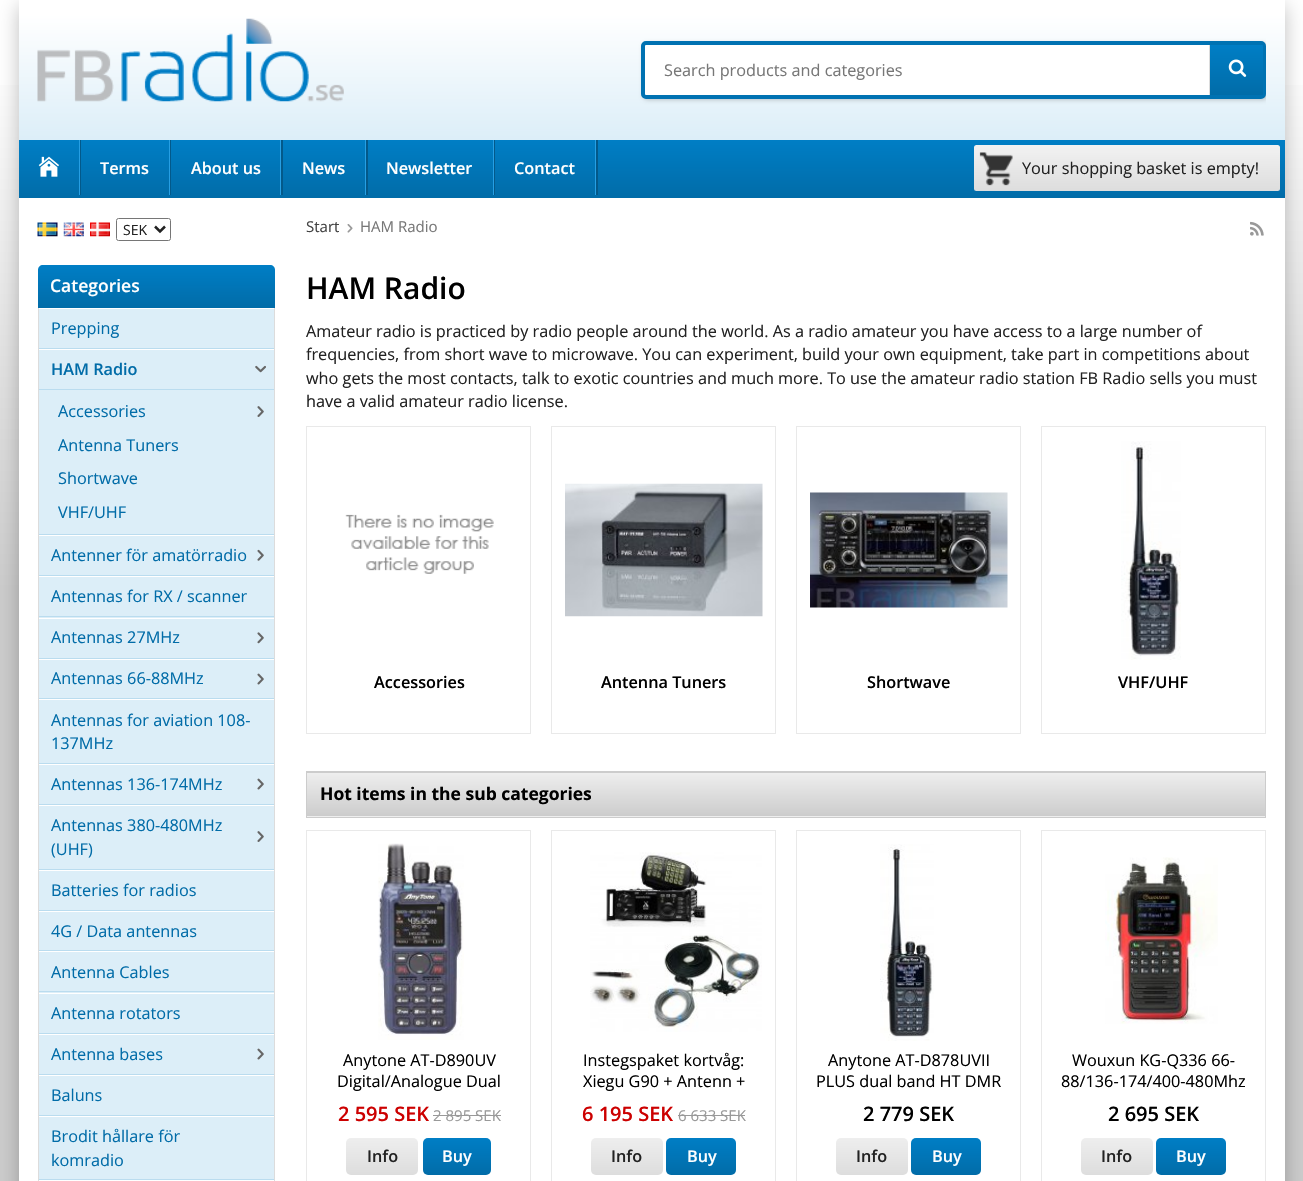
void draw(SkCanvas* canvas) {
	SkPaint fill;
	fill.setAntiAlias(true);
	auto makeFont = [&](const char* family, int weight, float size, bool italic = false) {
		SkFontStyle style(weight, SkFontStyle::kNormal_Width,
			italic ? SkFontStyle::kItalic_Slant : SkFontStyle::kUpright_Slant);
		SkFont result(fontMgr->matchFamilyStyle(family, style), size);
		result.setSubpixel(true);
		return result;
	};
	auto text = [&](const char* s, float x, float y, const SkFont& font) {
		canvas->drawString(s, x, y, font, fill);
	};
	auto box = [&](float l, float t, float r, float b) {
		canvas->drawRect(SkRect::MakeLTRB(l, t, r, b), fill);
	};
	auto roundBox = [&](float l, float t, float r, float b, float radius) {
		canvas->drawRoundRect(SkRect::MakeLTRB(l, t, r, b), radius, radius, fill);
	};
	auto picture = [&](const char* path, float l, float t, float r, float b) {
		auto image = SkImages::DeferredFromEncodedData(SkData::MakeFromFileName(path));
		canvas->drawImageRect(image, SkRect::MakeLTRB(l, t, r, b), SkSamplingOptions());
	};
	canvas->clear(0xFFFFFFFF);
	{
		const SkColor colors[] = {0xFFFFFFFF, 0xFFCCCCCC};
		const float stops[] = {0.05f, 0.5f};
		const SkPoint ends[] = {{652, 0}, {652, 1181}};
		fill.setShader(SkGradientShader::MakeLinear(ends, colors, stops, 2, SkTileMode::kClamp));
		fill.setAlpha(255);
	}
	box(0, 85, 1303, 1181);
	fill.setShader(nullptr);
	fill.setColor(0x40000000);
	fill.setMaskFilter(SkMaskFilter::MakeBlur(kNormal_SkBlurStyle, 9.5f));
	canvas->drawRect(SkRect::MakeLTRB(19, 6, 1285, 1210), fill);
	fill.setMaskFilter(nullptr);
	fill.setColor(0xFFFFFFFF);
	box(19, 198, 1285, 1181);
	{
		const SkColor colors[] = {0xFFFFFFFF, 0xFFDCEEF8};
		const float stops[] = {0.1f, 1};
		const SkPoint ends[] = {{652, 0}, {652, 140}};
		fill.setShader(SkGradientShader::MakeLinear(ends, colors, stops, 2, SkTileMode::kClamp));
		fill.setAlpha(255);
	}
	box(19, 0, 1285, 140);
	picture("image0.png", 37, 18, 344, 102);
	canvas->save();
	canvas->clipRect(SkRect::MakeLTRB(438, 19, 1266, 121));
	fill.setShader(nullptr);
	fill.setColor(0x33000000);
	fill.setMaskFilter(SkMaskFilter::MakeBlur(kNormal_SkBlurStyle, 2));
	canvas->drawRoundRect(SkRect::MakeLTRB(643, 43, 1268, 100), 5, 5, fill);
	fill.setMaskFilter(nullptr);
	canvas->restore();
	fill.setColor(0xFFFFFFFF);
	canvas->drawRoundRect(SkRect::MakeLTRB(643, 43, 1264, 97), 3, 3, fill);
	fill.setStyle(SkPaint::kStroke_Style);
	fill.setStrokeWidth(4);
	fill.setColor(0xFF0072B2);
	canvas->drawRoundRect(SkRect::MakeLTRB(643, 43, 1264, 97), 3, 3, fill);
	fill.setStyle(SkPaint::kFill_Style);
	{
		const SkColor colors[] = {0xFF007EC5, 0xFF016CA8};
		const float stops[] = {0, 1};
		const SkPoint ends[] = {{1238, 45}, {1238, 95}};
		fill.setShader(SkGradientShader::MakeLinear(ends, colors, stops, 2, SkTileMode::kClamp));
		fill.setAlpha(255);
	}
	canvas->drawPath(SkPathBuilder().moveTo(1209, 45).lineTo(1262, 45).cubicTo(1262.5f, 45, 1263, 45.5f, 1263, 46).lineTo(1263, 94).cubicTo(1263, 94.5f, 1262.5f, 95, 1262, 95).lineTo(1209, 95).close().detach(), fill);
	fill.setShader(nullptr);
	fill.setColor(0xFFDCDCDC);
	box(1209, 45, 1210, 95);
	picture("image1.png", 1228, 59, 1247, 77);
	{
		const SkColor colors[] = {0xFF007EC5, 0xFF016CA8};
		const float stops[] = {0, 1};
		const SkPoint ends[] = {{652, 140}, {652, 198}};
		fill.setShader(SkGradientShader::MakeLinear(ends, colors, stops, 2, SkTileMode::kClamp));
		fill.setAlpha(255);
	}
	box(19, 140, 1285, 198);
	fill.setShader(nullptr);
	fill.setColor(0xFF03598A);
	box(80, 140, 81, 195);
	fill.setColor(0xFF269FE4);
	box(79, 140, 80, 195);
	picture("image2.png", 38, 156, 59, 177);
	fill.setColor(0xFF03598A);
	box(170, 140, 171, 195);
	fill.setColor(0xFF269FE4);
	box(169, 140, 170, 195);
	fill.setColor(0xFF03598A);
	box(281, 140, 283, 195);
	fill.setColor(0xFF269FE4);
	box(280, 140, 281, 195);
	fill.setColor(0xFF03598A);
	box(366, 140, 368, 195);
	fill.setColor(0xFF269FE4);
	box(365, 140, 366, 195);
	fill.setColor(0xFF03598A);
	box(494, 140, 495, 195);
	fill.setColor(0xFF269FE4);
	box(493, 140, 494, 195);
	fill.setColor(0xFF03598A);
	box(596, 140, 598, 195);
	fill.setColor(0xFF269FE4);
	box(595, 140, 596, 195);
	{
		const SkColor colors[] = {0xFFF2F2F2, 0xFFDDDDDD};
		const float stops[] = {0, 1};
		const SkPoint ends[] = {{1127, 145}, {1127, 191}};
		fill.setShader(SkGradientShader::MakeLinear(ends, colors, stops, 2, SkTileMode::kClamp));
		fill.setAlpha(255);
	}
	roundBox(974, 145, 1280, 191, 2.5f);
	picture("image3.png", 979, 152, 1013, 186);
	picture("image4.png", 37, 222, 58, 237);
	picture("image5.png", 63, 222, 84, 237);
	picture("image6.png", 90, 222, 110, 237);
	fill.setStyle(SkPaint::kStroke_Style);
	fill.setStrokeWidth(1);
	fill.setShader(nullptr);
	fill.setColor(0xFF767676);
	canvas->drawRoundRect(SkRect::MakeLTRB(116.5f, 218.5f, 170.5f, 240.5f), 2, 2, fill);
	fill.setStrokeWidth(2.5f);
	fill.setColor(0xFF222222);
	canvas->drawPath(SkPathBuilder().moveTo(155, 226.5f).lineTo(160, 231.5f).lineTo(165, 226.5f).detach(), fill);
	fill.setStyle(SkPaint::kFill_Style);
	{
		const SkColor colors[] = {0xFF007EC5, 0xFF016CA8};
		const float stops[] = {0, 1};
		const SkPoint ends[] = {{156, 265}, {156, 308}};
		fill.setShader(SkGradientShader::MakeLinear(ends, colors, stops, 2, SkTileMode::kClamp));
		fill.setAlpha(255);
	}
	canvas->drawPath(SkPathBuilder().moveTo(43, 265).lineTo(270, 265).cubicTo(273, 265, 275, 267, 275, 270).lineTo(275, 308).lineTo(38, 308).lineTo(38, 270).cubicTo(38, 267, 40, 265, 43, 265).close().detach(), fill);
	fill.setShader(nullptr);
	fill.setColor(0xFFDCDCDC);
	box(274, 308, 275, 1181);
	box(38, 308, 39, 1181);
	fill.setColor(0xFFDCEEF8);
	box(39, 309, 274, 348);
	fill.setColor(0xFFBADCEF);
	box(39, 348, 274, 349);
	fill.setColor(0xFFDCEEF8);
	box(39, 350, 274, 389);
	fill.setColor(0xFFBADCEF);
	box(39, 389, 274, 390);
	picture("image7.png", 255, 365, 266, 373);
	fill.setColor(0xFFDCEEF8);
	box(39, 390, 274, 534);
	fill.setColor(0xFFBADCEF);
	box(39, 534, 274, 535);
	picture("image8.png", 257, 406, 264, 417);
	fill.setColor(0xFFDCEEF8);
	box(39, 536, 274, 575);
	fill.setColor(0xFFBADCEF);
	box(39, 575, 274, 576);
	picture("image9.png", 257, 549, 264, 561);
	fill.setColor(0xFFDCEEF8);
	box(39, 577, 274, 618);
	fill.setColor(0xFFBADCEF);
	box(39, 616, 274, 617);
	fill.setColor(0xFFDCEEF8);
	box(39, 619, 274, 658);
	fill.setColor(0xFFBADCEF);
	box(39, 658, 274, 659);
	picture("image10.png", 257, 632, 264, 644);
	fill.setColor(0xFFDCEEF8);
	box(39, 660, 274, 698);
	fill.setColor(0xFFBADCEF);
	box(39, 698, 274, 699);
	picture("image11.png", 257, 673, 264, 685);
	fill.setColor(0xFFDCEEF8);
	box(39, 700, 274, 763);
	fill.setColor(0xFFBADCEF);
	box(39, 763, 274, 764);
	fill.setColor(0xFFDCEEF8);
	box(39, 765, 274, 804);
	fill.setColor(0xFFBADCEF);
	box(39, 804, 274, 805);
	picture("image11.png", 257, 778, 264, 790);
	fill.setColor(0xFFDCEEF8);
	box(39, 806, 274, 869);
	fill.setColor(0xFFBADCEF);
	box(39, 869, 274, 870);
	picture("image8.png", 257, 831, 264, 842);
	fill.setColor(0xFFDCEEF8);
	box(39, 871, 274, 910);
	fill.setColor(0xFFBADCEF);
	box(39, 910, 274, 911);
	fill.setColor(0xFFDCEEF8);
	box(39, 912, 274, 950);
	fill.setColor(0xFFBADCEF);
	box(39, 950, 274, 951);
	fill.setColor(0xFFDCEEF8);
	box(39, 952, 274, 993);
	fill.setColor(0xFFBADCEF);
	box(39, 991, 274, 992);
	fill.setColor(0xFFDCEEF8);
	box(39, 994, 274, 1033);
	fill.setColor(0xFFBADCEF);
	box(39, 1033, 274, 1034);
	fill.setColor(0xFFDCEEF8);
	box(39, 1035, 274, 1074);
	fill.setColor(0xFFBADCEF);
	box(39, 1074, 274, 1075);
	picture("image11.png", 257, 1048, 264, 1060);
	fill.setColor(0xFFDCEEF8);
	box(39, 1076, 274, 1115);
	fill.setColor(0xFFBADCEF);
	box(39, 1115, 274, 1116);
	fill.setColor(0xFFDCEEF8);
	box(39, 1117, 274, 1179);
	fill.setColor(0xFFBADCEF);
	box(39, 1179, 274, 1180);
	picture("image12.png", 347, 224, 353, 233);
	picture("image13.png", 1250, 221, 1264, 236);
	fill.setStyle(SkPaint::kStroke_Style);
	fill.setStrokeWidth(1);
	fill.setColor(0xFFE9E9E9);
	canvas->drawRect(SkRect::MakeLTRB(306.5f, 426.5f, 530.5f, 733.5f), fill);
	picture("image14.png", 345, 514, 494, 574);
	canvas->drawRect(SkRect::MakeLTRB(551.5f, 426.5f, 775.5f, 733.5f), fill);
	picture("image15.png", 565, 483, 763, 617);
	canvas->drawRect(SkRect::MakeLTRB(796.5f, 426.5f, 1020.5f, 733.5f), fill);
	picture("image16.png", 810, 492, 1008, 608);
	canvas->drawRect(SkRect::MakeLTRB(1041.5f, 426.5f, 1265.5f, 733.5f), fill);
	picture("image17.png", 1121, 441, 1181, 660);
	fill.setStyle(SkPaint::kFill_Style);
	{
		const SkColor colors[] = {0xFFEEEEEE, 0xFFCCCCCC};
		const float stops[] = {0, 1};
		const SkPoint ends[] = {{786, 729}, {786, 773}};
		fill.setShader(SkGradientShader::MakeLinear(ends, colors, stops, 2, SkTileMode::kClamp));
		fill.setAlpha(255);
	}
	box(306, 772, 1266, 773);
	{
		const SkColor colors[] = {0xFFEEEEEE, 0xFFCCCCCC};
		const float stops[] = {0, 1};
		const SkPoint ends[] = {{786, 773}, {786, 816}};
		fill.setShader(SkGradientShader::MakeLinear(ends, colors, stops, 2, SkTileMode::kClamp));
		fill.setAlpha(255);
	}
	box(307, 773, 1265, 816);
	{
		const SkColor colors[] = {0xFFEEEEEE, 0xFFCCCCCC};
		const float stops[] = {0, 1};
		const SkPoint ends[] = {{786, 816}, {786, 860}};
		fill.setShader(SkGradientShader::MakeLinear(ends, colors, stops, 2, SkTileMode::kClamp));
		fill.setAlpha(255);
	}
	box(306, 816, 1266, 817);
	fill.setStyle(SkPaint::kStroke_Style);
	fill.setShader(nullptr);
	fill.setColor(0xFFCCCCCC);
	canvas->drawRect(SkRect::MakeLTRB(306.5f, 771.5f, 1265.5f, 817.5f), fill);
	fill.setColor(0xFFE9E9E9);
	canvas->drawRect(SkRect::MakeLTRB(306.5f, 830.5f, 530.5f, 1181.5f), fill);
	picture("image18.png", 378, 843, 464, 1040);
	fill.setStyle(SkPaint::kFill_Style);
	fill.setColor(0xFF999999);
	box(433, 1115, 501, 1116);
	{
		const SkColor colors[] = {0xFFEEEEEE, 0xFFDDDDDD};
		const float stops[] = {0, 1};
		const SkPoint ends[] = {{382, 1138}, {382, 1175}};
		fill.setShader(SkGradientShader::MakeLinear(ends, colors, stops, 2, SkTileMode::kClamp));
		fill.setAlpha(255);
	}
	roundBox(346, 1138, 418, 1175, 5);
	{
		const SkColor colors[] = {0xFF007EC5, 0xFF016CA8};
		const float stops[] = {0, 1};
		const SkPoint ends[] = {{457, 1138}, {457, 1175}};
		fill.setShader(SkGradientShader::MakeLinear(ends, colors, stops, 2, SkTileMode::kClamp));
		fill.setAlpha(255);
	}
	roundBox(423, 1138, 491, 1175, 5);
	fill.setStyle(SkPaint::kStroke_Style);
	fill.setShader(nullptr);
	fill.setColor(0xFFE9E9E9);
	canvas->drawRect(SkRect::MakeLTRB(551.5f, 830.5f, 775.5f, 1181.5f), fill);
	picture("image19.png", 590, 852, 762, 1032);
	fill.setStyle(SkPaint::kFill_Style);
	fill.setColor(0xFF999999);
	box(678, 1115, 745, 1116);
	{
		const SkColor colors[] = {0xFFEEEEEE, 0xFFDDDDDD};
		const float stops[] = {0, 1};
		const SkPoint ends[] = {{627, 1138}, {627, 1175}};
		fill.setShader(SkGradientShader::MakeLinear(ends, colors, stops, 2, SkTileMode::kClamp));
		fill.setAlpha(255);
	}
	roundBox(591, 1138, 663, 1175, 5);
	{
		const SkColor colors[] = {0xFF007EC5, 0xFF016CA8};
		const float stops[] = {0, 1};
		const SkPoint ends[] = {{701, 1138}, {701, 1175}};
		fill.setShader(SkGradientShader::MakeLinear(ends, colors, stops, 2, SkTileMode::kClamp));
		fill.setAlpha(255);
	}
	roundBox(666, 1138, 736, 1175, 5);
	fill.setStyle(SkPaint::kStroke_Style);
	fill.setShader(nullptr);
	fill.setColor(0xFFE9E9E9);
	canvas->drawRect(SkRect::MakeLTRB(796.5f, 830.5f, 1020.5f, 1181.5f), fill);
	picture("image20.png", 880, 844, 934, 1041);
	fill.setStyle(SkPaint::kFill_Style);
	{
		const SkColor colors[] = {0xFFEEEEEE, 0xFFDDDDDD};
		const float stops[] = {0, 1};
		const SkPoint ends[] = {{872, 1138}, {872, 1175}};
		fill.setShader(SkGradientShader::MakeLinear(ends, colors, stops, 2, SkTileMode::kClamp));
		fill.setAlpha(255);
	}
	roundBox(836, 1138, 908, 1175, 5);
	{
		const SkColor colors[] = {0xFF007EC5, 0xFF016CA8};
		const float stops[] = {0, 1};
		const SkPoint ends[] = {{946, 1138}, {946, 1175}};
		fill.setShader(SkGradientShader::MakeLinear(ends, colors, stops, 2, SkTileMode::kClamp));
		fill.setAlpha(255);
	}
	roundBox(911, 1138, 981, 1175, 5);
	fill.setStyle(SkPaint::kStroke_Style);
	fill.setShader(nullptr);
	fill.setColor(0xFFE9E9E9);
	canvas->drawRect(SkRect::MakeLTRB(1041.5f, 830.5f, 1265.5f, 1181.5f), fill);
	picture("image21.png", 1105, 857, 1218, 1024);
	fill.setStyle(SkPaint::kFill_Style);
	{
		const SkColor colors[] = {0xFFEEEEEE, 0xFFDDDDDD};
		const float stops[] = {0, 1};
		const SkPoint ends[] = {{1117, 1138}, {1117, 1175}};
		fill.setShader(SkGradientShader::MakeLinear(ends, colors, stops, 2, SkTileMode::kClamp));
		fill.setAlpha(255);
	}
	roundBox(1081, 1138, 1153, 1175, 5);
	{
		const SkColor colors[] = {0xFF007EC5, 0xFF016CA8};
		const float stops[] = {0, 1};
		const SkPoint ends[] = {{1191, 1138}, {1191, 1175}};
		fill.setShader(SkGradientShader::MakeLinear(ends, colors, stops, 2, SkTileMode::kClamp));
		fill.setAlpha(255);
	}
	roundBox(1156, 1138, 1226, 1175, 5);
	auto font1 = makeFont("Open Sans", 400, 16.25f);
	fill.setShader(nullptr);
	fill.setColor(0xFF777777);
	text("Search products and categories", 664, 76, font1);
	auto font2 = makeFont("Open Sans", 600, 16.25f);
	fill.setColor(0xFFFFFFFF);
	text("Terms", 100, 174, font2);
	text("About us", 191, 174, font2);
	text("News", 302, 174, font2);
	text("Newsletter", 386, 174, font2);
	text("Contact", 514, 174, font2);
	fill.setColor(0xFF222222);
	text("Your shopping basket is empty!", 1022, 174, font1);
	auto font3 = makeFont("Open Sans", 400, 14);
	text("SEK", 123, 235, font3);
	auto font4 = makeFont("Open Sans", 600, 17.5f);
	fill.setColor(0xFFFFFFFF);
	text("Categories", 50, 292, font4);
	fill.setColor(0xFF016CA8);
	text("Prepping", 51, 334, font1);
	text("HAM Radio", 51, 375, font2);
	text("Accessories", 58, 417, font1);
	text("Antenna Tuners", 58, 451, font1);
	text("Shortwave", 58, 484, font1);
	text("VHF/UHF", 58, 518, font1);
	text("Antenner för amatörradio", 51, 561, font1);
	text("Antennas for RX / scanner", 51, 602, font1);
	text("Antennas 27MHz", 51, 643, font1);
	text("Antennas 66-88MHz", 51, 684, font1);
	text("Antennas for aviation 108-", 51, 726, font1);
	text("137MHz", 51, 749, font1);
	text("Antennas 136-174MHz", 51, 790, font1);
	text("Antennas 380-480MHz", 51, 831, font1);
	text("(UHF)", 51, 855, font1);
	text("Batteries for radios", 51, 896, font1);
	text("4G / Data antennas", 51, 937, font1);
	text("Antenna Cables", 51, 978, font1);
	text("Antenna rotators", 51, 1019, font1);
	text("Antenna bases", 51, 1060, font1);
	text("Baluns", 51, 1101, font1);
	text("Brodit hållare för", 51, 1142, font1);
	text("komradio", 51, 1166, font1);
	auto font5 = makeFont("Open Sans", 400, 15);
	fill.setColor(0xFF444444);
	text("Start", 306, 232, font5);
	fill.setColor(0xFF777777);
	text("HAM Radio", 360, 232, font5);
	auto font6 = makeFont("Open Sans", 600, 30);
	fill.setColor(0xFF000000);
	text("HAM Radio", 306, 299, font6);
	fill.setColor(0xFF222222);
	text("Amateur radio is practiced by radio people around the world. As a radio amateur you have access to a large number of", 306, 337, font1);
	text("frequencies, from short wave to microwave. You can experiment, build your own equipment, take part in competitions about", 306, 360, font1);
	text("who gets the most contacts, talk to exotic countries and much more. To use the amateur radio station FB Radio sells you must", 306, 384, font1);
	text("have a valid amateur radio license.", 306, 407, font1);
	fill.setColor(0xFF000000);
	text("Accessories", 374, 688, font2);
	text("Antenna Tuners", 601, 688, font2);
	text("Shortwave", 867, 688, font2);
	text("VHF/UHF", 1118, 688, font2);
	auto font7 = makeFont("Open Sans", 700, 17.5f);
	text("Hot items in the sub categories", 320, 800, font7);
	text("Anytone AT-D890UV", 343, 1066, font1);
	text("Digital/Analogue Dual", 337, 1087, font1);
	auto font8 = makeFont("Open Sans", 600, 20);
	fill.setColor(0xFFCC0000);
	text("2 595 SEK", 338, 1121, font8);
	fill.setColor(0xFF999999);
	text("2 895 SEK", 433, 1121, font5);
	fill.setColor(0xFF222222);
	text("Info", 367, 1162, font2);
	fill.setColor(0xFFFFFFFF);
	text("Buy", 442, 1162, font2);
	fill.setColor(0xFF000000);
	text("Instegspaket kortvåg:", 583, 1066, font1);
	text("Xiegu G90 + Antenn +", 583, 1087, font1);
	fill.setColor(0xFFCC0000);
	text("6 195 SEK", 582, 1121, font8);
	fill.setColor(0xFF999999);
	text("6 633 SEK", 678, 1121, font5);
	fill.setColor(0xFF222222);
	text("Info", 611, 1162, font2);
	fill.setColor(0xFFFFFFFF);
	text("Buy", 687, 1162, font2);
	fill.setColor(0xFF000000);
	text("Anytone AT-D878UVII", 828, 1066, font1);
	text("PLUS dual band HT DMR", 816, 1087, font1);
	text("2 779 SEK", 863, 1121, font8);
	fill.setColor(0xFF222222);
	text("Info", 856, 1162, font2);
	fill.setColor(0xFFFFFFFF);
	text("Buy", 932, 1162, font2);
	fill.setColor(0xFF000000);
	text("Wouxun KG-Q336 66-", 1072, 1066, font1);
	text("88/136-174/400-480Mhz", 1061, 1087, font1);
	text("2 695 SEK", 1108, 1121, font8);
	fill.setColor(0xFF222222);
	text("Info", 1101, 1162, font2);
	fill.setColor(0xFFFFFFFF);
	text("Buy", 1176, 1162, font2);
}
